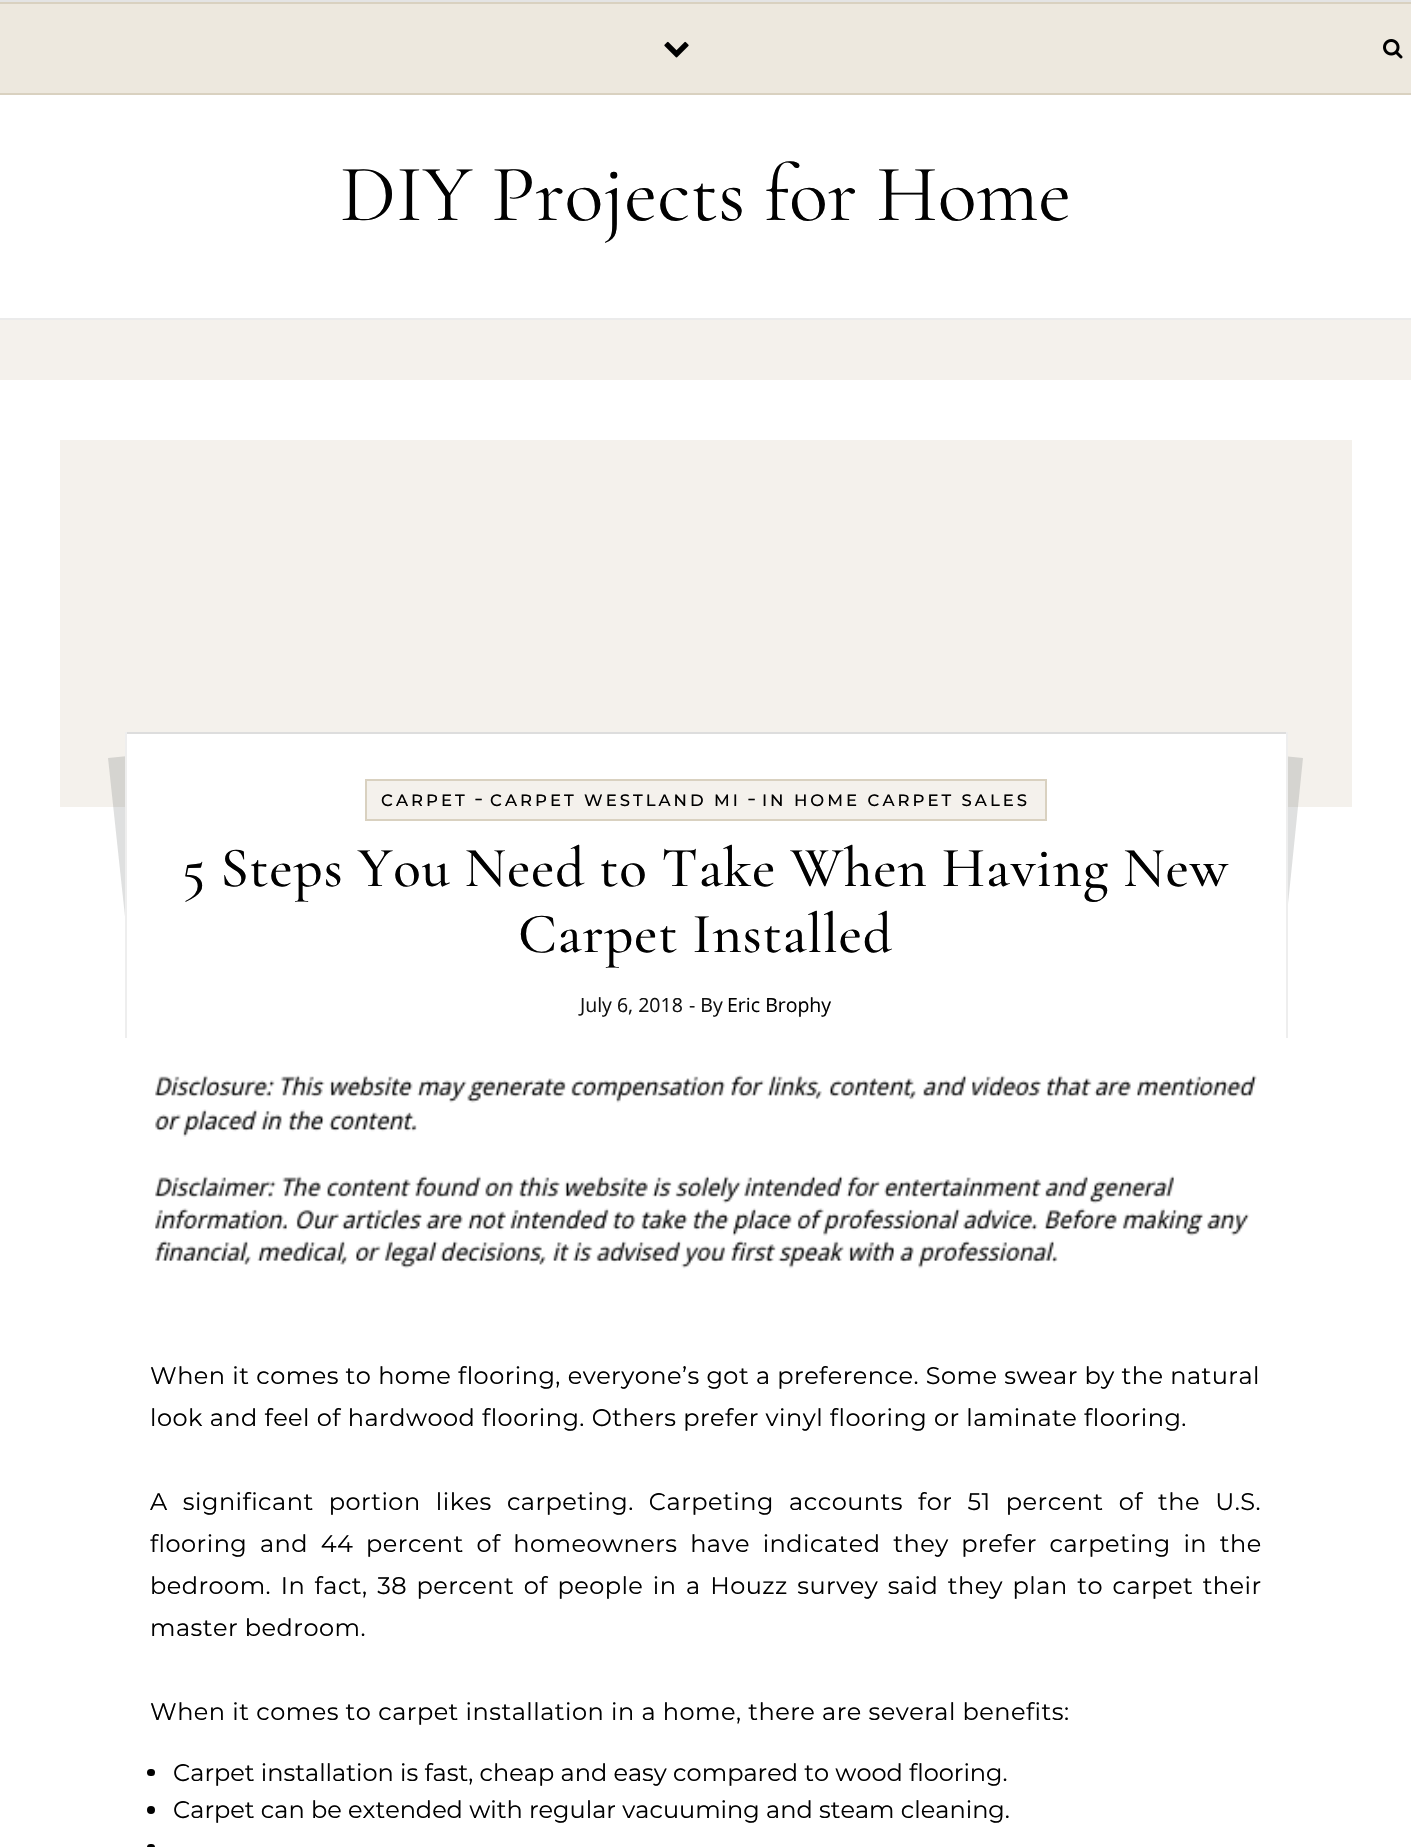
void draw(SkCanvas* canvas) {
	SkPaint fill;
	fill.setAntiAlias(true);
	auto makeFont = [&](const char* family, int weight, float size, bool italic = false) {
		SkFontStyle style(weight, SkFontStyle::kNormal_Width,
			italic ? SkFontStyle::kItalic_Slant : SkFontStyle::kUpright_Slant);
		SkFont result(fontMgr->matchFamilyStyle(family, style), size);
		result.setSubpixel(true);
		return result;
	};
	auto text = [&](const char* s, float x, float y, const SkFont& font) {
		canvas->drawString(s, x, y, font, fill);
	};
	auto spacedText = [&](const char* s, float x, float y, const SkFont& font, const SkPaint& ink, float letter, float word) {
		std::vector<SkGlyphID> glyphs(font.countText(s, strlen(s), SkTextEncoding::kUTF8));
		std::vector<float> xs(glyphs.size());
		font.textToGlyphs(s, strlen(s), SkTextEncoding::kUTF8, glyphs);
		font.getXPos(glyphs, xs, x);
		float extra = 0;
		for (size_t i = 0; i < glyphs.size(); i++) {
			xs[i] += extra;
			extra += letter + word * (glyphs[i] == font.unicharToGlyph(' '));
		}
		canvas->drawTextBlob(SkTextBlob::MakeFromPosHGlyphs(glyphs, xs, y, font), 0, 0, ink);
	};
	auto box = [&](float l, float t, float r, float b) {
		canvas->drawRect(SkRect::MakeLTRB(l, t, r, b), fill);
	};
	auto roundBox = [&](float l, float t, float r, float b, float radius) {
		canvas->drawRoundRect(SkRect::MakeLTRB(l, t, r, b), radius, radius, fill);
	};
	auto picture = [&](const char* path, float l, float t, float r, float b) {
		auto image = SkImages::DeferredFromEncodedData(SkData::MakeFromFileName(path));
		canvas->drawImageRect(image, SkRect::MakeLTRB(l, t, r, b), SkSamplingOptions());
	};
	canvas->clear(0xFFF4F1EC);
	fill.setColor(0xFFE4E4E4);
	box(0, 0, 1411, 2);
	fill.setColor(0xFFEDE8DE);
	box(0, 4, 1411, 93);
	fill.setColor(0xFFD9D1C0);
	box(0, 2, 1411, 4);
	box(0, 93, 1411, 95);
	picture("image0.png", 664, 41, 689, 58);
	picture("image1.png", 1383, 39, 1403, 59);
	fill.setColor(0xFFFFFFFF);
	box(0, 95, 1411, 318);
	fill.setColor(0xFFEBEBEB);
	box(0, 318, 1411, 320);
	fill.setColor(0xFFFFFFFF);
	box(0, 380, 1411, 1847);
	fill.setColor(0xFFF4F1EC);
	box(60, 440, 1352, 807);
	fill.setColor(0x26272C31);
	canvas->drawPath(SkPathBuilder().moveTo(108, 758).lineTo(138, 755).lineTo(162, 979).lineTo(132, 982).close().detach(), fill);
	canvas->drawPath(SkPathBuilder().moveTo(1273, 755).lineTo(1303, 758).lineTo(1280, 982).lineTo(1250, 979).close().detach(), fill);
	fill.setColor(0xFFFFFFFF);
	box(127, 734, 1286, 982);
	fill.setColor(0xFFDDDDDD);
	box(125, 732, 1287, 734);
	fill.setColor(0xFFEEEEEE);
	box(1286, 732, 1288, 1038);
	box(125, 732, 127, 1038);
	fill.setColor(0xFFF4F1EC);
	canvas->drawRect(SkRect::MakeLTRB(366, 780, 1046, 820), fill);
	fill.setStyle(SkPaint::kStroke_Style);
	fill.setStrokeWidth(2);
	fill.setColor(0xFFD9D1C0);
	canvas->drawRect(SkRect::MakeLTRB(366, 780, 1046, 820), fill);
	picture("image2.png", 155, 1075, 1257, 1269);
	fill.setStyle(SkPaint::kFill_Style);
	fill.setColor(0xFF010101);
	roundBox(147, 1769, 155, 1776, 3.5f);
	canvas->drawCircle(151, 1810, 4, fill);
	roundBox(147, 1844, 155, 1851, 3.5f);
	auto font1 = makeFont("Cormorant Garamond", 400, 81);
	text("DIY Projects for Home", 340, 220, font1);
	auto font2 = makeFont("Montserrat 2", 100, 16.5f);
	spacedText("CARPET", 381, 806, font2, fill, 3, 0);
	auto font3 = makeFont("Montserrat", 100, 24);
	text("-", 474, 806, font3);
	spacedText("CARPET WESTLAND MI", 490, 806, font2, fill, 3, 0);
	text("-", 747, 806, font3);
	spacedText("IN HOME CARPET SALES", 762, 806, font2, fill, 3, 0);
	auto font4 = makeFont("Cormorant Garamond", 500, 57);
	spacedText("5 Steps You Need to Take When Having New", 182, 886, font4, fill, 0.75f, 0);
	spacedText("Carpet Installed", 518, 952, font4, fill, 0.75f, 0);
	auto font5 = makeFont("Open Sans", 400, 19.5f);
	fill.setColor(0xFF111111);
	text("July 6, 2018", 580, 1012, font5);
	text("- By", 689, 1012, font5);
	fill.setColor(0xFF010101);
	text("Eric Brophy", 727, 1012, font5);
	spacedText("When it comes to home flooring, everyone’s got a preference. Some swear by the natural", 150, 1384, font3, fill, 0.48f, 0);
	spacedText("look and feel of hardwood flooring. Others prefer vinyl flooring or laminate flooring.", 150, 1426, font3, fill, 0.48f, 0);
	spacedText("A significant portion likes carpeting. Carpeting accounts for 51 percent of the U.S.", 150, 1510, font3, fill, 0.48f, 8.4f);
	spacedText("flooring and 44 percent of homeowners have indicated they prefer carpeting in the", 150, 1552, font3, fill, 0.48f, 5.9f);
	spacedText("bedroom. In fact, 38 percent of people in a Houzz survey said they plan to carpet their", 150, 1594, font3, fill, 0.48f, 2.75f);
	spacedText("master bedroom.", 150, 1636, font3, fill, 0.48f, 0);
	spacedText("When it comes to carpet installation in a home, there are several benefits:", 150, 1720, font3, fill, 0.48f, 0);
	text("Carpet installation is fast, cheap and easy compared to wood flooring.", 173, 1781, font3);
	text("Carpet can be extended with regular vacuuming and steam cleaning.", 173, 1818, font3);
}
